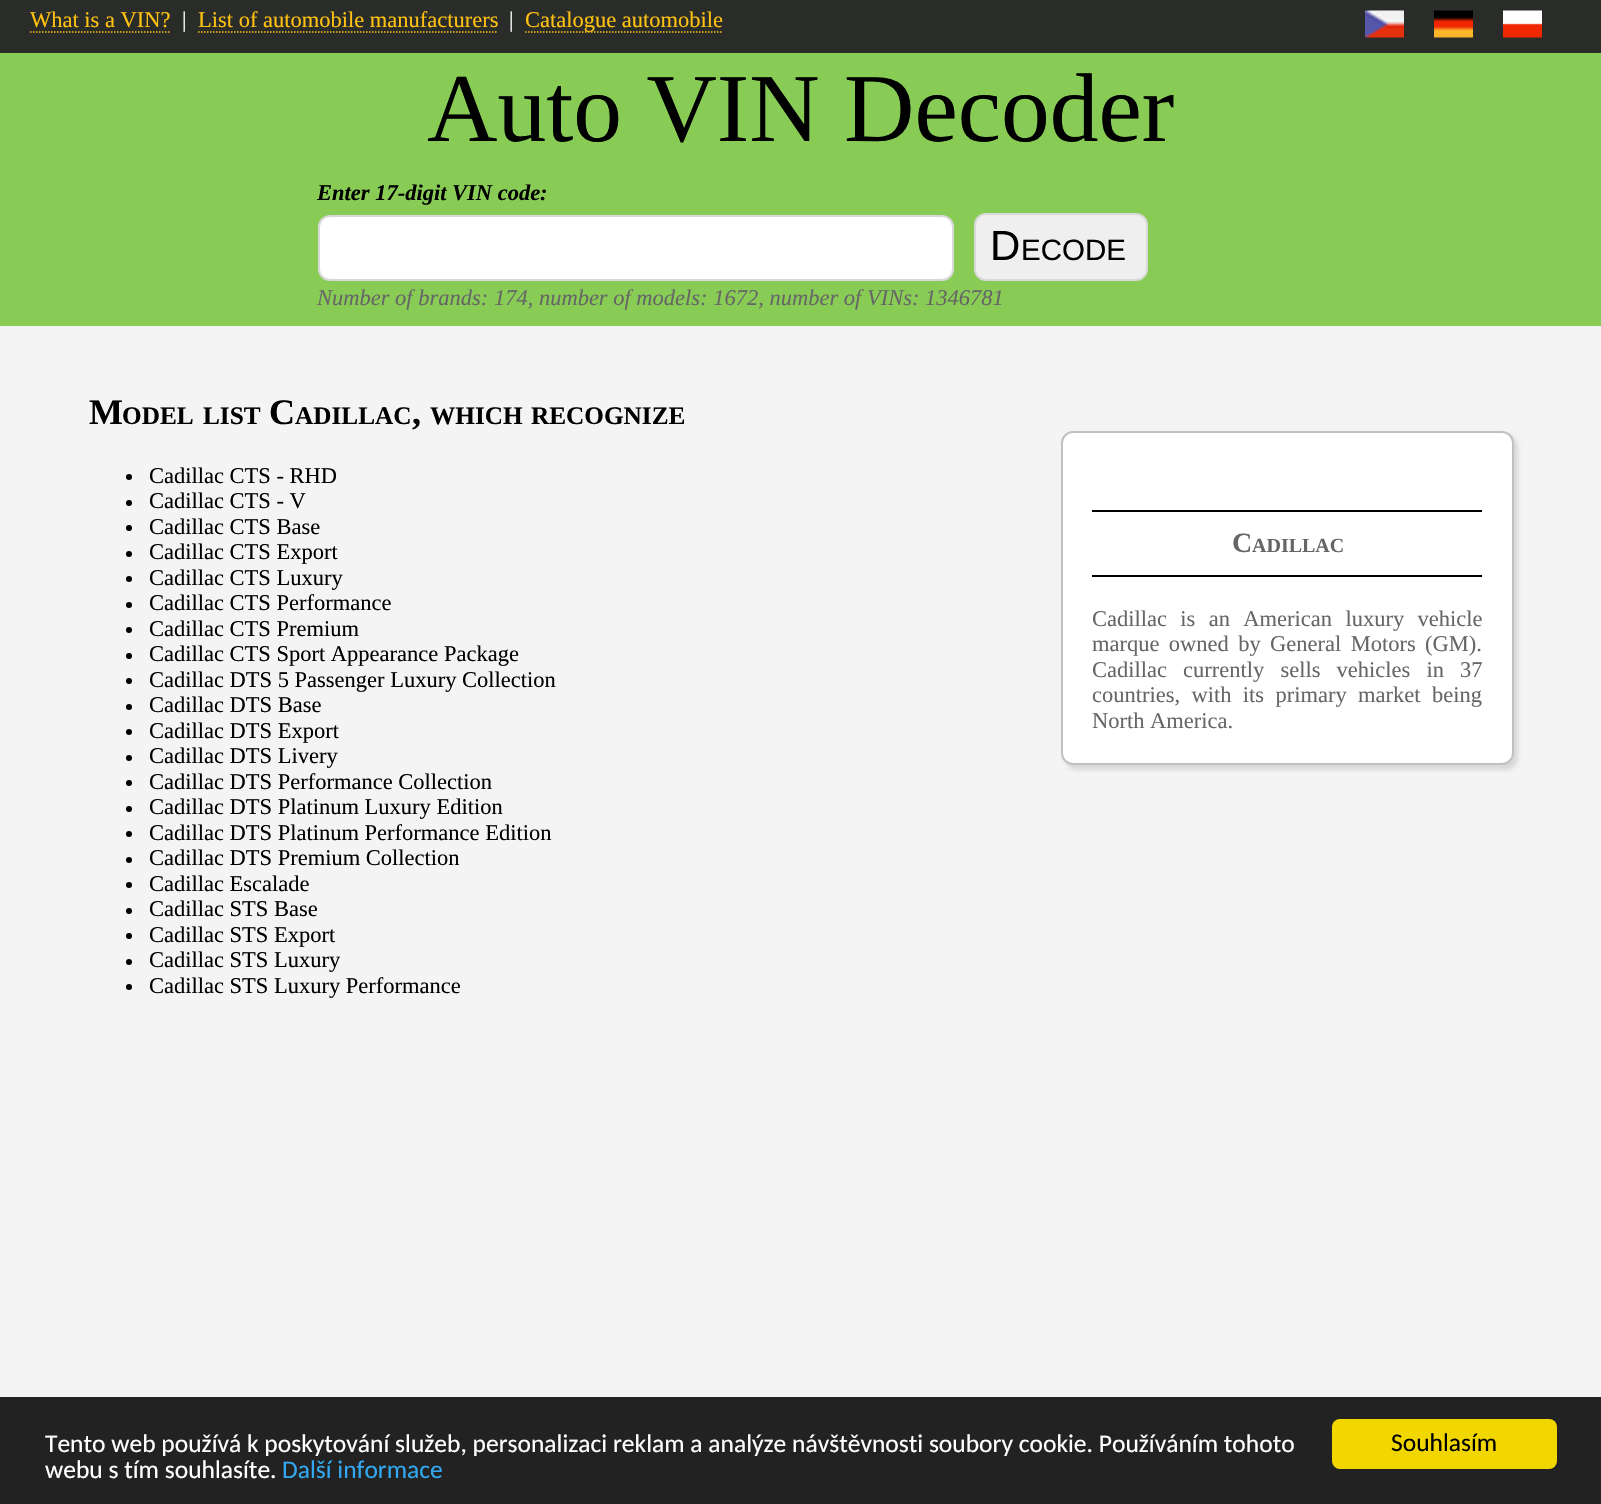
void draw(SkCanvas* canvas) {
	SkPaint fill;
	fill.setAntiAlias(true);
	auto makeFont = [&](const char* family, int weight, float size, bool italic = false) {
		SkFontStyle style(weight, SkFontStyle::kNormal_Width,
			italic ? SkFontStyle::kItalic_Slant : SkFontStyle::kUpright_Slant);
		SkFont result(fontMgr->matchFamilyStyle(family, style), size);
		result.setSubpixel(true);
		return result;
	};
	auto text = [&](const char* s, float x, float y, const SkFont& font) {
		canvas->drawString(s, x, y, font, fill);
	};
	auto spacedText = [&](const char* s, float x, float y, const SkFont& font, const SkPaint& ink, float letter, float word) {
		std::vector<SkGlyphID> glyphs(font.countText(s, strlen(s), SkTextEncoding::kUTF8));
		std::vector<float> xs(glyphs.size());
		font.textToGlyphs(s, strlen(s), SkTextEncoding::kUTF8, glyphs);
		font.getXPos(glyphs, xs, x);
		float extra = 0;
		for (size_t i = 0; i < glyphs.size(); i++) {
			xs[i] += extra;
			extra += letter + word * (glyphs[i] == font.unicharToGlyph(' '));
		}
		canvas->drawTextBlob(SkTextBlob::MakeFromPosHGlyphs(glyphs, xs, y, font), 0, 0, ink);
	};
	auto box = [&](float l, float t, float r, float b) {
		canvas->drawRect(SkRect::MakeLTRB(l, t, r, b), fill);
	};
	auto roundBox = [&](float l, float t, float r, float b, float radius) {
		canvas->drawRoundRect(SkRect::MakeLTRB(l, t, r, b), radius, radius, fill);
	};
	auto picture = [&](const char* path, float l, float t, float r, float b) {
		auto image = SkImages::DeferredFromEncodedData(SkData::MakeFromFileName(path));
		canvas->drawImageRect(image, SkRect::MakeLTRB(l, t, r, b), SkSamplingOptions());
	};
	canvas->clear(0xFFF4F4F4);
	fill.setColor(0xFF292C29);
	box(0, 0, 1601, 53);
	fill.setStyle(SkPaint::kStroke_Style);
	fill.setStrokeWidth(1.5f);
	fill.setColor(0xFFFFC211);
	fill.setPathEffect(SkDashPathEffect::Make({{1.5f, 1.5f}}, 0));
	canvas->drawPath(SkPathBuilder().moveTo(30, 32).lineTo(171, 32).detach(), fill);
	fill.setPathEffect(nullptr);
	fill.setPathEffect(SkDashPathEffect::Make({{1.5f, 1.5f}}, 0));
	canvas->drawPath(SkPathBuilder().moveTo(198, 32).lineTo(498, 32).detach(), fill);
	fill.setPathEffect(nullptr);
	fill.setPathEffect(SkDashPathEffect::Make({{1.5f, 1.5f}}, 0));
	canvas->drawPath(SkPathBuilder().moveTo(525, 32).lineTo(723, 32).detach(), fill);
	fill.setPathEffect(nullptr);
	picture("image0.png", 1365, 10, 1404, 38);
	picture("image1.png", 1434, 10, 1473, 38);
	picture("image2.png", 1503, 10, 1542, 38);
	fill.setStyle(SkPaint::kFill_Style);
	fill.setColor(0xFF88CC55);
	box(0, 53, 1601, 326);
	fill.setColor(0xFFFFFFFF);
	canvas->drawRoundRect(SkRect::MakeLTRB(319, 216, 953, 280), 11, 11, fill);
	fill.setStyle(SkPaint::kStroke_Style);
	fill.setStrokeWidth(2);
	fill.setColor(0xFFD9D9D9);
	canvas->drawRoundRect(SkRect::MakeLTRB(319, 216, 953, 280), 11, 11, fill);
	fill.setStyle(SkPaint::kFill_Style);
	fill.setColor(0xFFEFEFEF);
	canvas->drawRoundRect(SkRect::MakeLTRB(975, 214, 1147, 280), 11, 11, fill);
	fill.setStyle(SkPaint::kStroke_Style);
	fill.setColor(0xFFD9D9D9);
	canvas->drawRoundRect(SkRect::MakeLTRB(975, 214, 1147, 280), 11, 11, fill);
	fill.setStyle(SkPaint::kFill_Style);
	fill.setColor(0xFF000000);
	canvas->drawCircle(129, 477, 3, fill);
	canvas->drawCircle(129, 503, 3, fill);
	canvas->drawCircle(129, 528, 3, fill);
	canvas->drawCircle(129, 554, 3, fill);
	canvas->drawCircle(129, 579, 3, fill);
	canvas->drawCircle(129, 605, 3, fill);
	canvas->drawCircle(129, 630, 3, fill);
	canvas->drawCircle(129, 656, 3, fill);
	canvas->drawCircle(129, 681, 3, fill);
	canvas->drawCircle(129, 707, 3, fill);
	canvas->drawCircle(129, 732, 3, fill);
	canvas->drawCircle(129, 758, 3, fill);
	canvas->drawCircle(129, 783, 3, fill);
	canvas->drawCircle(129, 809, 3, fill);
	canvas->drawCircle(129, 834, 3, fill);
	canvas->drawCircle(129, 860, 3, fill);
	canvas->drawCircle(129, 885, 3, fill);
	canvas->drawCircle(129, 911, 3, fill);
	canvas->drawCircle(129, 936, 3, fill);
	canvas->drawCircle(129, 962, 3, fill);
	canvas->drawCircle(129, 987, 3, fill);
	fill.setColor(0xFFD9D9D9);
	fill.setMaskFilter(SkMaskFilter::MakeBlur(kNormal_SkBlurStyle, 2));
	canvas->drawRoundRect(SkRect::MakeLTRB(1065, 435, 1518, 770), 12, 12, fill);
	fill.setMaskFilter(nullptr);
	fill.setColor(0xFFFFFFFF);
	canvas->drawRoundRect(SkRect::MakeLTRB(1062, 432, 1513, 764), 11, 11, fill);
	fill.setStyle(SkPaint::kStroke_Style);
	fill.setColor(0xFFC1C1C1);
	canvas->drawRoundRect(SkRect::MakeLTRB(1062, 432, 1513, 764), 11, 11, fill);
	fill.setStyle(SkPaint::kFill_Style);
	fill.setColor(0xFF000000);
	box(1092, 510, 1482, 512);
	box(1092, 575, 1482, 577);
	fill.setColor(0xFF222222);
	box(0, 1397, 1601, 1504);
	fill.setColor(0xFFF1D600);
	roundBox(1332, 1419, 1557, 1469, 8);
	auto font1 = makeFont("Liberation Serif", 400, 22.5f);
	fill.setColor(0xFFFFC211);
	text("What is a VIN?", 30, 27, font1);
	fill.setColor(0xFFFFFFFF);
	text("|", 182, 27, font1);
	fill.setColor(0xFFFFC211);
	text("List of automobile manufacturers", 198, 27, font1);
	fill.setColor(0xFFFFFFFF);
	text("|", 509, 27, font1);
	fill.setColor(0xFFFFC211);
	text("Catalogue automobile", 525, 27, font1);
	auto font2 = makeFont("Liberation Serif", 400, 97.5f);
	fill.setColor(0xFF000000);
	text("Auto VIN Decoder", 427, 141, font2);
	auto font3 = makeFont("Liberation Serif", 700, 22.5f, true);
	text("Enter 17-digit VIN code:", 317, 200, font3);
	auto font4 = makeFont("Liberation Sans", 400, 42);
	text("D", 990, 260, font4);
	auto font5 = makeFont("Liberation Sans", 400, 29.5f);
	text("ECODE", 1021, 260, font5);
	auto font6 = makeFont("Liberation Serif", 400, 22.5f, true);
	fill.setColor(0xFF666666);
	text("Number of brands: 174, number of models: 1672, number of VINs: 1346781", 317, 305, font6);
	auto font7 = makeFont("Liberation Serif", 700, 36);
	fill.setColor(0xFF000000);
	text("M", 89, 424, font7);
	auto font8 = makeFont("Liberation Serif", 700, 25.25f);
	text("ODEL", 122, 424, font8);
	text("LIST", 203, 424, font8);
	text("C", 269, 424, font7);
	text("ADILLAC", 295, 424, font8);
	text(",", 412, 424, font7);
	text("WHICH", 430, 424, font8);
	text("RECOGNIZE", 531, 424, font8);
	text("Cadillac CTS - RHD", 149, 483, font1);
	text("Cadillac CTS - V", 149, 508, font1);
	text("Cadillac CTS Base", 149, 534, font1);
	text("Cadillac CTS Export", 149, 559, font1);
	text("Cadillac CTS Luxury", 149, 585, font1);
	text("Cadillac CTS Performance", 149, 610, font1);
	text("Cadillac CTS Premium", 149, 636, font1);
	text("Cadillac CTS Sport Appearance Package", 149, 661, font1);
	text("Cadillac DTS 5 Passenger Luxury Collection", 149, 687, font1);
	text("Cadillac DTS Base", 149, 712, font1);
	text("Cadillac DTS Export", 149, 738, font1);
	text("Cadillac DTS Livery", 149, 763, font1);
	text("Cadillac DTS Performance Collection", 149, 789, font1);
	text("Cadillac DTS Platinum Luxury Edition", 149, 814, font1);
	text("Cadillac DTS Platinum Performance Edition", 149, 840, font1);
	text("Cadillac DTS Premium Collection", 149, 865, font1);
	text("Cadillac Escalade", 149, 891, font1);
	text("Cadillac STS Base", 149, 916, font1);
	text("Cadillac STS Export", 149, 942, font1);
	text("Cadillac STS Luxury", 149, 967, font1);
	text("Cadillac STS Luxury Performance", 149, 993, font1);
	auto font9 = makeFont("Liberation Serif", 700, 28);
	fill.setColor(0xFF666666);
	text("C", 1232, 552, font9);
	auto font10 = makeFont("Liberation Serif", 700, 20);
	text("ADILLAC", 1252, 552, font10);
	spacedText("Cadillac is an American luxury vehicle", 1092, 626, font1, fill, 0, 7.75f);
	spacedText("marque owned by General Motors (GM).", 1092, 651, font1, fill, 0, 3.75f);
	spacedText("Cadillac currently sells vehicles in 37", 1092, 677, font1, fill, 0, 10.5f);
	spacedText("countries, with its primary market being", 1092, 702, font1, fill, 0, 5.75f);
	text("North America.", 1092, 728, font1);
	auto font11 = makeFont("Carlito", 400, 25.5f);
	fill.setColor(0xFFFFFFFF);
	text("Tento web používá k poskytování služeb, personalizaci reklam a analýze návštěvnosti soubory cookie. Používáním tohoto", 45, 1452, font11);
	text("webu s tím souhlasíte.", 45, 1478, font11);
	fill.setColor(0xFF31A8F0);
	text("Další informace", 282, 1478, font11);
	fill.setColor(0xFF000000);
	text("Souhlasím", 1391, 1451, font11);
}
